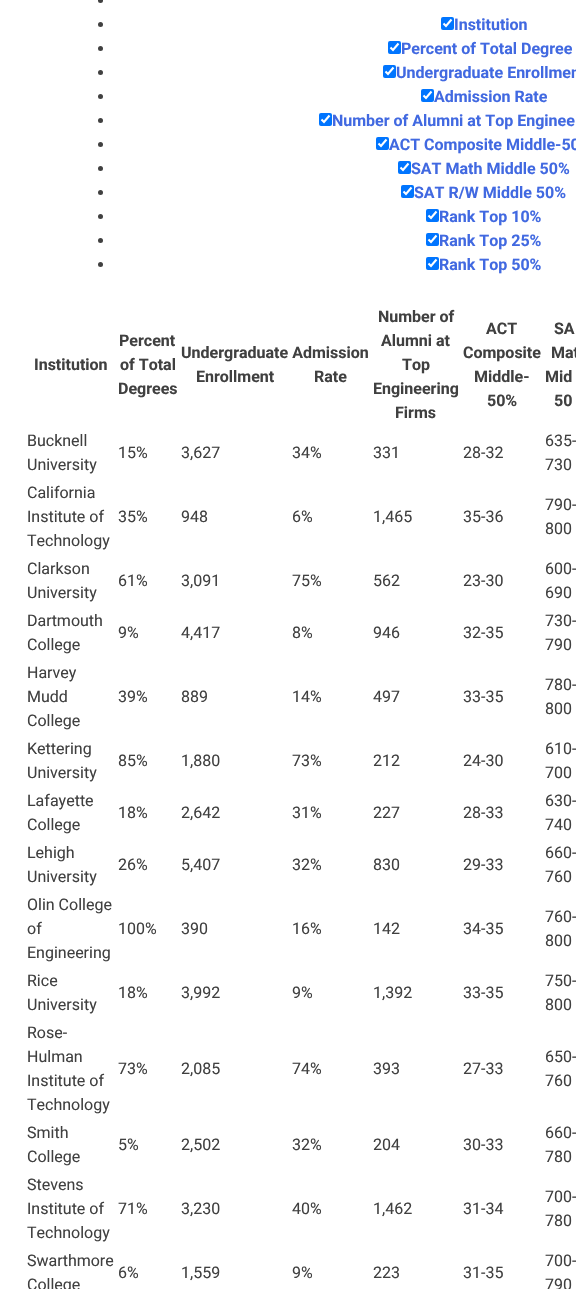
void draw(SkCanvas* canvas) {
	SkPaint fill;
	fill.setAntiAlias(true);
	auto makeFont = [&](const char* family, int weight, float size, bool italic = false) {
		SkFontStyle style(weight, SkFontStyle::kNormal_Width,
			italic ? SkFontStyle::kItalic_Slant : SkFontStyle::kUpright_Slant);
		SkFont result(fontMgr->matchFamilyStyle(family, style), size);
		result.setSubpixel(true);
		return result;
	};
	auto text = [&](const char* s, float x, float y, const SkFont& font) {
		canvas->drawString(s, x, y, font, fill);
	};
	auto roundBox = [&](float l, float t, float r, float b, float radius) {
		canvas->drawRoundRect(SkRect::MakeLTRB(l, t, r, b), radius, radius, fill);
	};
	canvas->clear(0xFFFFFFFF);
	fill.setColor(0xFF404040);
	canvas->drawCircle(100.5f, 0.5f, 2.5f, fill);
	canvas->drawCircle(100.5f, 24.5f, 2.5f, fill);
	fill.setColor(0xFF0075FF);
	roundBox(441, 17, 454, 30, 2);
	fill.setStyle(SkPaint::kStroke_Style);
	fill.setStrokeWidth(2.1f);
	fill.setColor(0xFFFFFFFF);
	canvas->drawPath(SkPathBuilder().moveTo(443.5f, 23.5f).lineTo(446, 26).lineTo(451.5f, 19.5f).detach(), fill);
	fill.setStyle(SkPaint::kFill_Style);
	fill.setColor(0xFF404040);
	canvas->drawCircle(100.5f, 48.5f, 2.5f, fill);
	fill.setColor(0xFF0075FF);
	roundBox(388, 41, 401, 54, 2);
	fill.setStyle(SkPaint::kStroke_Style);
	fill.setColor(0xFFFFFFFF);
	canvas->drawPath(SkPathBuilder().moveTo(390.5f, 47.5f).lineTo(393, 50).lineTo(398.5f, 43.5f).detach(), fill);
	fill.setStyle(SkPaint::kFill_Style);
	fill.setColor(0xFF404040);
	canvas->drawCircle(100.5f, 72.5f, 2.5f, fill);
	fill.setColor(0xFF0075FF);
	roundBox(383, 65, 396, 78, 2);
	fill.setStyle(SkPaint::kStroke_Style);
	fill.setColor(0xFFFFFFFF);
	canvas->drawPath(SkPathBuilder().moveTo(385.5f, 71.5f).lineTo(388, 74).lineTo(393.5f, 67.5f).detach(), fill);
	fill.setStyle(SkPaint::kFill_Style);
	fill.setColor(0xFF404040);
	canvas->drawCircle(100.5f, 96.5f, 2.5f, fill);
	fill.setColor(0xFF0075FF);
	roundBox(421, 89, 434, 102, 2);
	fill.setStyle(SkPaint::kStroke_Style);
	fill.setColor(0xFFFFFFFF);
	canvas->drawPath(SkPathBuilder().moveTo(423.5f, 95.5f).lineTo(426, 98).lineTo(431.5f, 91.5f).detach(), fill);
	fill.setStyle(SkPaint::kFill_Style);
	fill.setColor(0xFF404040);
	canvas->drawCircle(100.5f, 120.5f, 2.5f, fill);
	fill.setColor(0xFF0075FF);
	roundBox(319, 113, 332, 126, 2);
	fill.setStyle(SkPaint::kStroke_Style);
	fill.setColor(0xFFFFFFFF);
	canvas->drawPath(SkPathBuilder().moveTo(321.5f, 119.5f).lineTo(324, 122).lineTo(329.5f, 115.5f).detach(), fill);
	fill.setStyle(SkPaint::kFill_Style);
	fill.setColor(0xFF404040);
	canvas->drawCircle(100.5f, 144.5f, 2.5f, fill);
	fill.setColor(0xFF0075FF);
	roundBox(376, 137, 389, 150, 2);
	fill.setStyle(SkPaint::kStroke_Style);
	fill.setColor(0xFFFFFFFF);
	canvas->drawPath(SkPathBuilder().moveTo(378.5f, 143.5f).lineTo(381, 146).lineTo(386.5f, 139.5f).detach(), fill);
	fill.setStyle(SkPaint::kFill_Style);
	fill.setColor(0xFF404040);
	canvas->drawCircle(100.5f, 168.5f, 2.5f, fill);
	fill.setColor(0xFF0075FF);
	roundBox(398, 161, 411, 174, 2);
	fill.setStyle(SkPaint::kStroke_Style);
	fill.setColor(0xFFFFFFFF);
	canvas->drawPath(SkPathBuilder().moveTo(400.5f, 167.5f).lineTo(403, 170).lineTo(408.5f, 163.5f).detach(), fill);
	fill.setStyle(SkPaint::kFill_Style);
	fill.setColor(0xFF404040);
	canvas->drawCircle(100.5f, 192.5f, 2.5f, fill);
	fill.setColor(0xFF0075FF);
	roundBox(401, 185, 414, 198, 2);
	fill.setStyle(SkPaint::kStroke_Style);
	fill.setColor(0xFFFFFFFF);
	canvas->drawPath(SkPathBuilder().moveTo(403.5f, 191.5f).lineTo(406, 194).lineTo(411.5f, 187.5f).detach(), fill);
	fill.setStyle(SkPaint::kFill_Style);
	fill.setColor(0xFF404040);
	canvas->drawCircle(100.5f, 216.5f, 2.5f, fill);
	fill.setColor(0xFF0075FF);
	roundBox(426, 209, 439, 222, 2);
	fill.setStyle(SkPaint::kStroke_Style);
	fill.setColor(0xFFFFFFFF);
	canvas->drawPath(SkPathBuilder().moveTo(428.5f, 215.5f).lineTo(431, 218).lineTo(436.5f, 211.5f).detach(), fill);
	fill.setStyle(SkPaint::kFill_Style);
	fill.setColor(0xFF404040);
	canvas->drawCircle(100.5f, 240.5f, 2.5f, fill);
	fill.setColor(0xFF0075FF);
	roundBox(426, 233, 439, 246, 2);
	fill.setStyle(SkPaint::kStroke_Style);
	fill.setColor(0xFFFFFFFF);
	canvas->drawPath(SkPathBuilder().moveTo(428.5f, 239.5f).lineTo(431, 242).lineTo(436.5f, 235.5f).detach(), fill);
	fill.setStyle(SkPaint::kFill_Style);
	fill.setColor(0xFF404040);
	canvas->drawCircle(100.5f, 264.5f, 2.5f, fill);
	fill.setColor(0xFF0075FF);
	roundBox(426, 257, 439, 270, 2);
	fill.setStyle(SkPaint::kStroke_Style);
	fill.setColor(0xFFFFFFFF);
	canvas->drawPath(SkPathBuilder().moveTo(428.5f, 263.5f).lineTo(431, 266).lineTo(436.5f, 259.5f).detach(), fill);
	auto font1 = makeFont("Roboto", 700, 16);
	fill.setStyle(SkPaint::kFill_Style);
	fill.setColor(0xFF4169E1);
	text("Institution", 454, 30, font1);
	text("Percent of Total Degree", 401, 54, font1);
	text("Undergraduate Enrollmen", 396, 78, font1);
	text("Admission Rate", 434, 102, font1);
	text("Number of Alumni at Top Enginee", 332, 126, font1);
	text("ACT Composite Middle-50", 389, 150, font1);
	text("SAT Math Middle 50%", 411, 174, font1);
	text("SAT R/W Middle 50%", 414, 198, font1);
	text("Rank Top 10%", 439, 222, font1);
	text("Rank Top 25%", 439, 246, font1);
	text("Rank Top 50%", 439, 270, font1);
	fill.setColor(0xFF404040);
	text("Institution", 34, 370, font1);
	text("Percent", 119, 346, font1);
	text("of Total", 120, 370, font1);
	text("Degrees", 118, 394, font1);
	text("Undergraduate Admission", 181, 358, font1);
	text("Enrollment", 196, 382, font1);
	text("Number of", 378, 322, font1);
	text("Alumni at", 381, 346, font1);
	text("Top", 402, 370, font1);
	text("Engineering", 373, 394, font1);
	text("Firms", 395, 418, font1);
	text("ACT", 486, 334, font1);
	text("Composite", 463, 358, font1);
	text("Middle-", 474, 382, font1);
	text("50%", 487, 406, font1);
	text("SA", 554, 334, font1);
	text("Mat", 551, 358, font1);
	text("Mid", 545, 382, font1);
	text("50", 554, 406, font1);
	text("Rate", 314, 382, font1);
	auto font2 = makeFont("Roboto", 400, 16);
	text("Bucknell", 27, 446, font2);
	text("University", 27, 470, font2);
	text("15%", 118, 458, font2);
	text("3,627", 181, 458, font2);
	text("34%", 292, 458, font2);
	text("331", 373, 458, font2);
	text("28-32", 463, 458, font2);
	text("635-", 545, 446, font2);
	text("730", 545, 470, font2);
	text("California", 27, 498, font2);
	text("Institute of", 27, 522, font2);
	text("Technology", 27, 546, font2);
	text("35%", 118, 522, font2);
	text("948", 181, 522, font2);
	text("6%", 292, 522, font2);
	text("1,465", 373, 522, font2);
	text("35-36", 463, 522, font2);
	text("790-", 545, 510, font2);
	text("800", 545, 534, font2);
	text("Clarkson", 27, 574, font2);
	text("University", 27, 598, font2);
	text("61%", 118, 586, font2);
	text("3,091", 181, 586, font2);
	text("75%", 292, 586, font2);
	text("562", 373, 586, font2);
	text("23-30", 463, 586, font2);
	text("600-", 545, 574, font2);
	text("690", 545, 598, font2);
	text("Dartmouth", 27, 626, font2);
	text("College", 27, 650, font2);
	text("9%", 118, 638, font2);
	text("4,417", 181, 638, font2);
	text("8%", 292, 638, font2);
	text("946", 373, 638, font2);
	text("32-35", 463, 638, font2);
	text("730-", 545, 626, font2);
	text("790", 545, 650, font2);
	text("Harvey", 27, 678, font2);
	text("Mudd", 27, 702, font2);
	text("College", 27, 726, font2);
	text("39%", 118, 702, font2);
	text("889", 181, 702, font2);
	text("14%", 292, 702, font2);
	text("497", 373, 702, font2);
	text("33-35", 463, 702, font2);
	text("780-", 545, 690, font2);
	text("800", 545, 714, font2);
	text("Kettering", 27, 754, font2);
	text("University", 27, 778, font2);
	text("85%", 118, 766, font2);
	text("1,880", 181, 766, font2);
	text("73%", 292, 766, font2);
	text("212", 373, 766, font2);
	text("24-30", 463, 766, font2);
	text("610-", 545, 754, font2);
	text("700", 545, 778, font2);
	text("Lafayette", 27, 806, font2);
	text("College", 27, 830, font2);
	text("18%", 118, 818, font2);
	text("2,642", 181, 818, font2);
	text("31%", 292, 818, font2);
	text("227", 373, 818, font2);
	text("28-33", 463, 818, font2);
	text("630-", 545, 806, font2);
	text("740", 545, 830, font2);
	text("Lehigh", 27, 858, font2);
	text("University", 27, 882, font2);
	text("26%", 118, 870, font2);
	text("5,407", 181, 870, font2);
	text("32%", 292, 870, font2);
	text("830", 373, 870, font2);
	text("29-33", 463, 870, font2);
	text("660-", 545, 858, font2);
	text("760", 545, 882, font2);
	text("Olin College", 27, 910, font2);
	text("of", 27, 934, font2);
	text("Engineering", 27, 958, font2);
	text("100%", 118, 934, font2);
	text("390", 181, 934, font2);
	text("16%", 292, 934, font2);
	text("142", 373, 934, font2);
	text("34-35", 463, 934, font2);
	text("760-", 545, 922, font2);
	text("800", 545, 946, font2);
	text("Rice", 27, 986, font2);
	text("University", 27, 1010, font2);
	text("18%", 118, 998, font2);
	text("3,992", 181, 998, font2);
	text("9%", 292, 998, font2);
	text("1,392", 373, 998, font2);
	text("33-35", 463, 998, font2);
	text("750-", 545, 986, font2);
	text("800", 545, 1010, font2);
	text("Rose-", 27, 1038, font2);
	text("Hulman", 27, 1062, font2);
	text("Institute of", 27, 1086, font2);
	text("Technology", 27, 1110, font2);
	text("73%", 118, 1074, font2);
	text("2,085", 181, 1074, font2);
	text("74%", 292, 1074, font2);
	text("393", 373, 1074, font2);
	text("27-33", 463, 1074, font2);
	text("650-", 545, 1062, font2);
	text("760", 545, 1086, font2);
	text("Smith", 27, 1138, font2);
	text("College", 27, 1162, font2);
	text("5%", 118, 1150, font2);
	text("2,502", 181, 1150, font2);
	text("32%", 292, 1150, font2);
	text("204", 373, 1150, font2);
	text("30-33", 463, 1150, font2);
	text("660-", 545, 1138, font2);
	text("780", 545, 1162, font2);
	text("Stevens", 27, 1190, font2);
	text("Institute of", 27, 1214, font2);
	text("Technology", 27, 1238, font2);
	text("71%", 118, 1214, font2);
	text("3,230", 181, 1214, font2);
	text("40%", 292, 1214, font2);
	text("1,462", 373, 1214, font2);
	text("31-34", 463, 1214, font2);
	text("700-", 545, 1202, font2);
	text("780", 545, 1226, font2);
	text("Swarthmore", 27, 1266, font2);
	text("College", 27, 1290, font2);
	text("6%", 118, 1278, font2);
	text("1,559", 181, 1278, font2);
	text("9%", 292, 1278, font2);
	text("223", 373, 1278, font2);
	text("31-35", 463, 1278, font2);
	text("700-", 545, 1266, font2);
	text("790", 545, 1290, font2);
}
